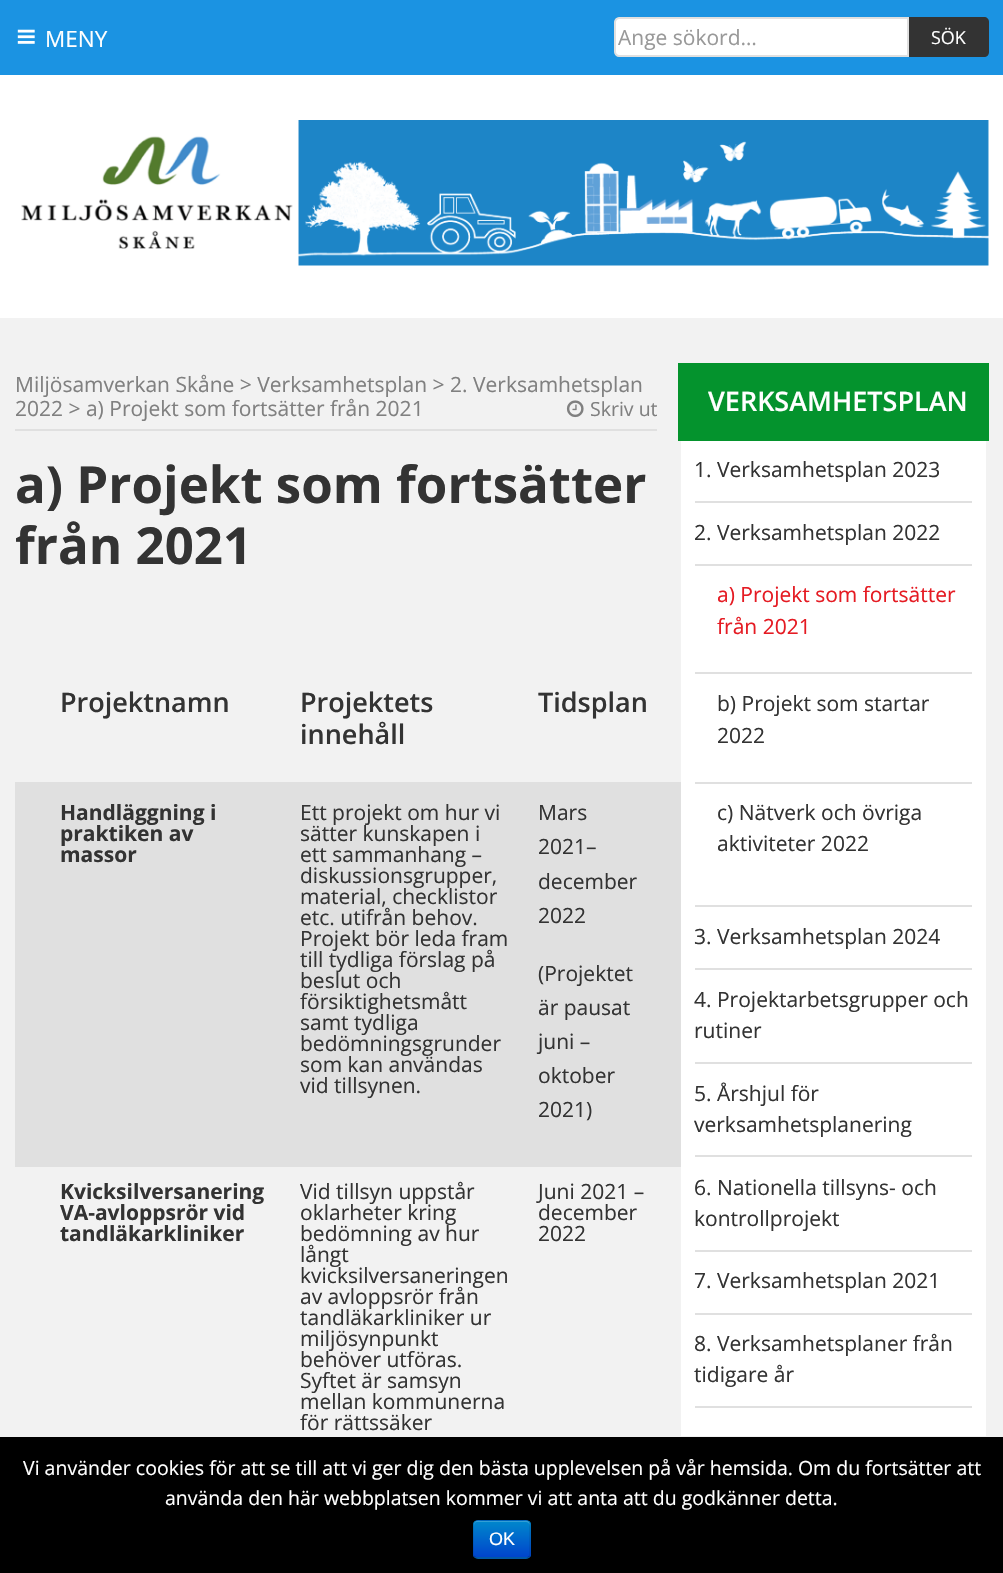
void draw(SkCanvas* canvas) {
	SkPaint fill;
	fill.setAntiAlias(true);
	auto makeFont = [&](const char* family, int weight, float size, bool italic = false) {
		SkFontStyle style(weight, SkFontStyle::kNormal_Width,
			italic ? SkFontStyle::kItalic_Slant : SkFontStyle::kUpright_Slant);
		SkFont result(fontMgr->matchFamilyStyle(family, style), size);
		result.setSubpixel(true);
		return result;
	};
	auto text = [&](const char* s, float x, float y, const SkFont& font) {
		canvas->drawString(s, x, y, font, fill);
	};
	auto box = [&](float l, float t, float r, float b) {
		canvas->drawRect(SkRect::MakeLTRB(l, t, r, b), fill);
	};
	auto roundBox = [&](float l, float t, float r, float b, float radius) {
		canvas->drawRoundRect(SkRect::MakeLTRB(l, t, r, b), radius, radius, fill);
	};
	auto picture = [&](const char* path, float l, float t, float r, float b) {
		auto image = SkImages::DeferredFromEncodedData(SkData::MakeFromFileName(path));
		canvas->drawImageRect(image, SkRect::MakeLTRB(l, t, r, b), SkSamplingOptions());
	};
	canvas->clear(0xFFF2F2F2);
	fill.setColor(0xFFFFFFFF);
	box(0, 75, 1003, 318);
	fill.setColor(0xFF1B93E2);
	box(0, 0, 1003, 75);
	picture("image0.png", 17, 29, 35, 44);
	fill.setColor(0xFFFFFFFF);
	canvas->drawPath(SkPathBuilder().moveTo(619, 18).lineTo(908, 18).lineTo(908, 56).lineTo(619, 56).cubicTo(617, 56, 615, 54, 615, 52).lineTo(615, 22).cubicTo(615, 20, 617, 18, 619, 18).close().detach(), fill);
	fill.setStyle(SkPaint::kStroke_Style);
	fill.setStrokeWidth(2);
	fill.setColor(0xFFE0E0E0);
	canvas->drawPath(SkPathBuilder().moveTo(619, 18).lineTo(908, 18).lineTo(908, 56).lineTo(619, 56).cubicTo(617, 56, 615, 54, 615, 52).lineTo(615, 22).cubicTo(615, 20, 617, 18, 619, 18).close().detach(), fill);
	fill.setStyle(SkPaint::kFill_Style);
	fill.setColor(0xFF333333);
	canvas->drawPath(SkPathBuilder().moveTo(909, 17).lineTo(984, 17).cubicTo(987, 17, 989, 19, 989, 22).lineTo(989, 52).cubicTo(989, 55, 987, 57, 984, 57).lineTo(909, 57).close().detach(), fill);
	picture("image1.png", 21, 120, 989, 266);
	fill.setColor(0xFFE0E0E0);
	box(15, 429, 657, 431);
	picture("image2.png", 566, 400, 584, 418);
	box(15, 782, 681, 1167);
	fill.setColor(0xFF04932D);
	box(678, 363, 989, 441);
	fill.setColor(0xFFFFFFFF);
	box(681, 441, 986, 1436);
	fill.setColor(0xFFE0E0E0);
	box(695, 501, 972, 503);
	box(695, 905, 972, 907);
	box(695, 564, 972, 566);
	box(695, 672, 972, 674);
	box(695, 782, 972, 784);
	box(695, 968, 972, 970);
	box(695, 1062, 972, 1064);
	box(695, 1155, 972, 1157);
	box(695, 1250, 972, 1252);
	box(695, 1313, 972, 1315);
	box(695, 1406, 972, 1408);
	fill.setColor(0xFF000000);
	box(0, 1437, 1003, 1573);
	fill.setColor(0xFF006DCC);
	roundBox(473, 1520, 531, 1559, 5);
	canvas->save();
	canvas->clipPath(SkPathBuilder().moveTo(478, 1520).lineTo(526, 1520).cubicTo(529, 1520, 531, 1522, 531, 1525).lineTo(531, 1554).cubicTo(531, 1557, 529, 1559, 526, 1559).lineTo(478, 1559).cubicTo(475, 1559, 473, 1557, 473, 1554).lineTo(473, 1525).cubicTo(473, 1522, 475, 1520, 478, 1520).close().detach(), true);
	{
		const SkColor colors[] = {0xFF0088CC, 0xFF0044CC};
		const float stops[] = {0, 1};
		const SkPoint ends[] = {{502, 1521}, {502, 1557}};
		fill.setShader(SkGradientShader::MakeLinear(ends, colors, stops, 2, SkTileMode::kClamp));
		fill.setAlpha(255);
	}
	box(473, 1521, 531, 1557);
	canvas->restore();
	fill.setShader(nullptr);
	fill.setColor(0x33FFFFFF);
	canvas->drawPath(SkPathBuilder().moveTo(477, 1522).lineTo(526, 1522).cubicTo(528, 1522, 530, 1524, 530, 1526).cubicTo(530, 1519, 526, 1521, 519, 1521).lineTo(485, 1521).cubicTo(478, 1521, 474, 1519, 474, 1526).cubicTo(474, 1524, 475, 1522, 477, 1522).close().detach(), fill);
	fill.setStyle(SkPaint::kStroke_Style);
	fill.setStrokeWidth(1.5f);
	fill.setColor(0x40000000);
	canvas->drawPath(SkPathBuilder().moveTo(529, 1556.5f).cubicTo(528.5f, 1557.5f, 527.5f, 1558, 526.5f, 1558).lineTo(477, 1558).cubicTo(476, 1558, 475, 1557.5f, 474.5f, 1556.5f).detach(), fill);
	fill.setColor(0x1A000000);
	canvas->drawPath(SkPathBuilder().moveTo(474.5f, 1556.5f).cubicTo(473.5f, 1556, 473, 1555, 473, 1554).lineTo(473, 1524).cubicTo(473, 1523, 473.5f, 1522, 474.5f, 1521.5f).cubicTo(475, 1520.5f, 476, 1520, 477, 1520).lineTo(526.5f, 1520).cubicTo(527.5f, 1520, 528.5f, 1520.5f, 529, 1521.5f).cubicTo(530, 1522, 530, 1523, 530, 1524).lineTo(530, 1554).cubicTo(530, 1555, 530, 1556, 529, 1556.5f).detach(), fill);
	auto font1 = makeFont("Open Sans", 400, 22.5f);
	fill.setStyle(SkPaint::kFill_Style);
	fill.setColor(0xFFFFFFFF);
	text("MENY", 45, 47, font1);
	auto font2 = makeFont("Open Sans", 400, 21);
	fill.setColor(0xFF999999);
	text("Ange sökord…", 618, 45, font2);
	auto font3 = makeFont("Open Sans", 400, 18);
	fill.setColor(0xFFFFFFFF);
	text("SÖK", 931, 44, font3);
	fill.setColor(0xFF808080);
	text("Miljösamverkan Skåne > Verksamhetsplan > 2. Verksamhetsplan", 15, 392, font2);
	text("2022 > a) Projekt som fortsätter från 2021", 15, 416, font2);
	auto font4 = makeFont("Open Sans", 400, 19.5f);
	text("Skriv ut", 590, 416, font4);
	auto font5 = makeFont("Open Sans", 700, 51);
	fill.setColor(0xFF333333);
	text("a) Projekt som fortsätter", 15, 503, font5);
	text("från 2021", 15, 564, font5);
	auto font6 = makeFont("Open Sans", 600, 27);
	text("Projektnamn", 60, 712, font6);
	text("Projektets", 300, 712, font6);
	text("innehåll", 300, 744, font6);
	text("Tidsplan", 538, 712, font6);
	auto font7 = makeFont("Open Sans", 700, 21);
	text("Handläggning i", 60, 820, font7);
	text("praktiken av", 60, 841, font7);
	text("massor", 60, 862, font7);
	text("Ett projekt om hur vi", 300, 820, font2);
	text("sätter kunskapen i", 300, 841, font2);
	text("ett sammanhang –", 300, 862, font2);
	text("diskussionsgrupper,", 300, 883, font2);
	text("material, checklistor", 300, 904, font2);
	text("etc. utifrån behov.", 300, 925, font2);
	text("Projekt bör leda fram", 300, 946, font2);
	text("till tydliga förslag på", 300, 967, font2);
	text("beslut och", 300, 988, font2);
	text("försiktighetsmått", 300, 1009, font2);
	text("samt tydliga", 300, 1030, font2);
	text("bedömningsgrunder", 300, 1051, font2);
	text("som kan användas", 300, 1072, font2);
	text("vid tillsynen.", 300, 1093, font2);
	text("Mars", 538, 820, font2);
	text("2021–", 538, 854, font2);
	text("december", 538, 889, font2);
	text("2022", 538, 923, font2);
	text("(Projektet", 538, 981, font2);
	text("är pausat", 538, 1015, font2);
	text("juni –", 538, 1049, font2);
	text("oktober", 538, 1083, font2);
	text("2021)", 538, 1117, font2);
	text("Kvicksilversanering", 60, 1199, font7);
	text("VA-avloppsrör vid", 60, 1220, font7);
	text("tandläkarkliniker", 60, 1241, font7);
	text("Vid tillsyn uppstår", 300, 1199, font2);
	text("oklarheter kring", 300, 1220, font2);
	text("bedömning av hur", 300, 1241, font2);
	text("långt", 300, 1262, font2);
	text("kvicksilversaneringen", 300, 1283, font2);
	text("av avloppsrör från", 300, 1304, font2);
	text("tandläkarkliniker ur", 300, 1325, font2);
	text("miljösynpunkt", 300, 1346, font2);
	text("behöver utföras.", 300, 1367, font2);
	text("Syftet är samsyn", 300, 1388, font2);
	text("mellan kommunerna", 300, 1409, font2);
	text("för rättssäker", 300, 1430, font2);
	text("Juni 2021 –", 538, 1199, font2);
	text("december", 538, 1220, font2);
	text("2022", 538, 1241, font2);
	fill.setColor(0xFFFFFFFF);
	text("VERKSAMHETSPLAN", 708, 411, font6);
	fill.setColor(0xFF333333);
	text("1. Verksamhetsplan 2023", 694, 477, font2);
	text("2. Verksamhetsplan 2022", 694, 540, font2);
	fill.setColor(0xFFE51B23);
	text("a) Projekt som fortsätter", 717, 602, font2);
	text("från 2021", 717, 634, font2);
	fill.setColor(0xFF333333);
	text("b) Projekt som startar", 717, 711, font2);
	text("2022", 717, 743, font2);
	text("c) Nätverk och övriga", 717, 820, font2);
	text("aktiviteter 2022", 717, 851, font2);
	text("3. Verksamhetsplan 2024", 694, 944, font2);
	text("4. Projektarbetsgrupper och", 694, 1007, font2);
	text("rutiner", 694, 1038, font2);
	text("5. Årshjul för", 694, 1101, font2);
	text("verksamhetsplanering", 694, 1132, font2);
	text("6. Nationella tillsyns- och", 694, 1195, font2);
	text("kontrollprojekt", 694, 1226, font2);
	text("7. Verksamhetsplan 2021", 694, 1288, font2);
	text("8. Verksamhetsplaner från", 694, 1351, font2);
	text("tidigare år", 694, 1382, font2);
	fill.setColor(0xFFFFFFFF);
	text("Vi använder cookies för att se till att vi ger dig den bästa upplevelsen på vår hemsida. Om du fortsätter att", 23, 1475, font4);
	text("använda den här webbplatsen kommer vi att anta att du godkänner detta.", 165, 1505, font4);
	auto font8 = makeFont("Liberation Sans", 400, 18);
	text("OK", 489, 1545, font8);
}
